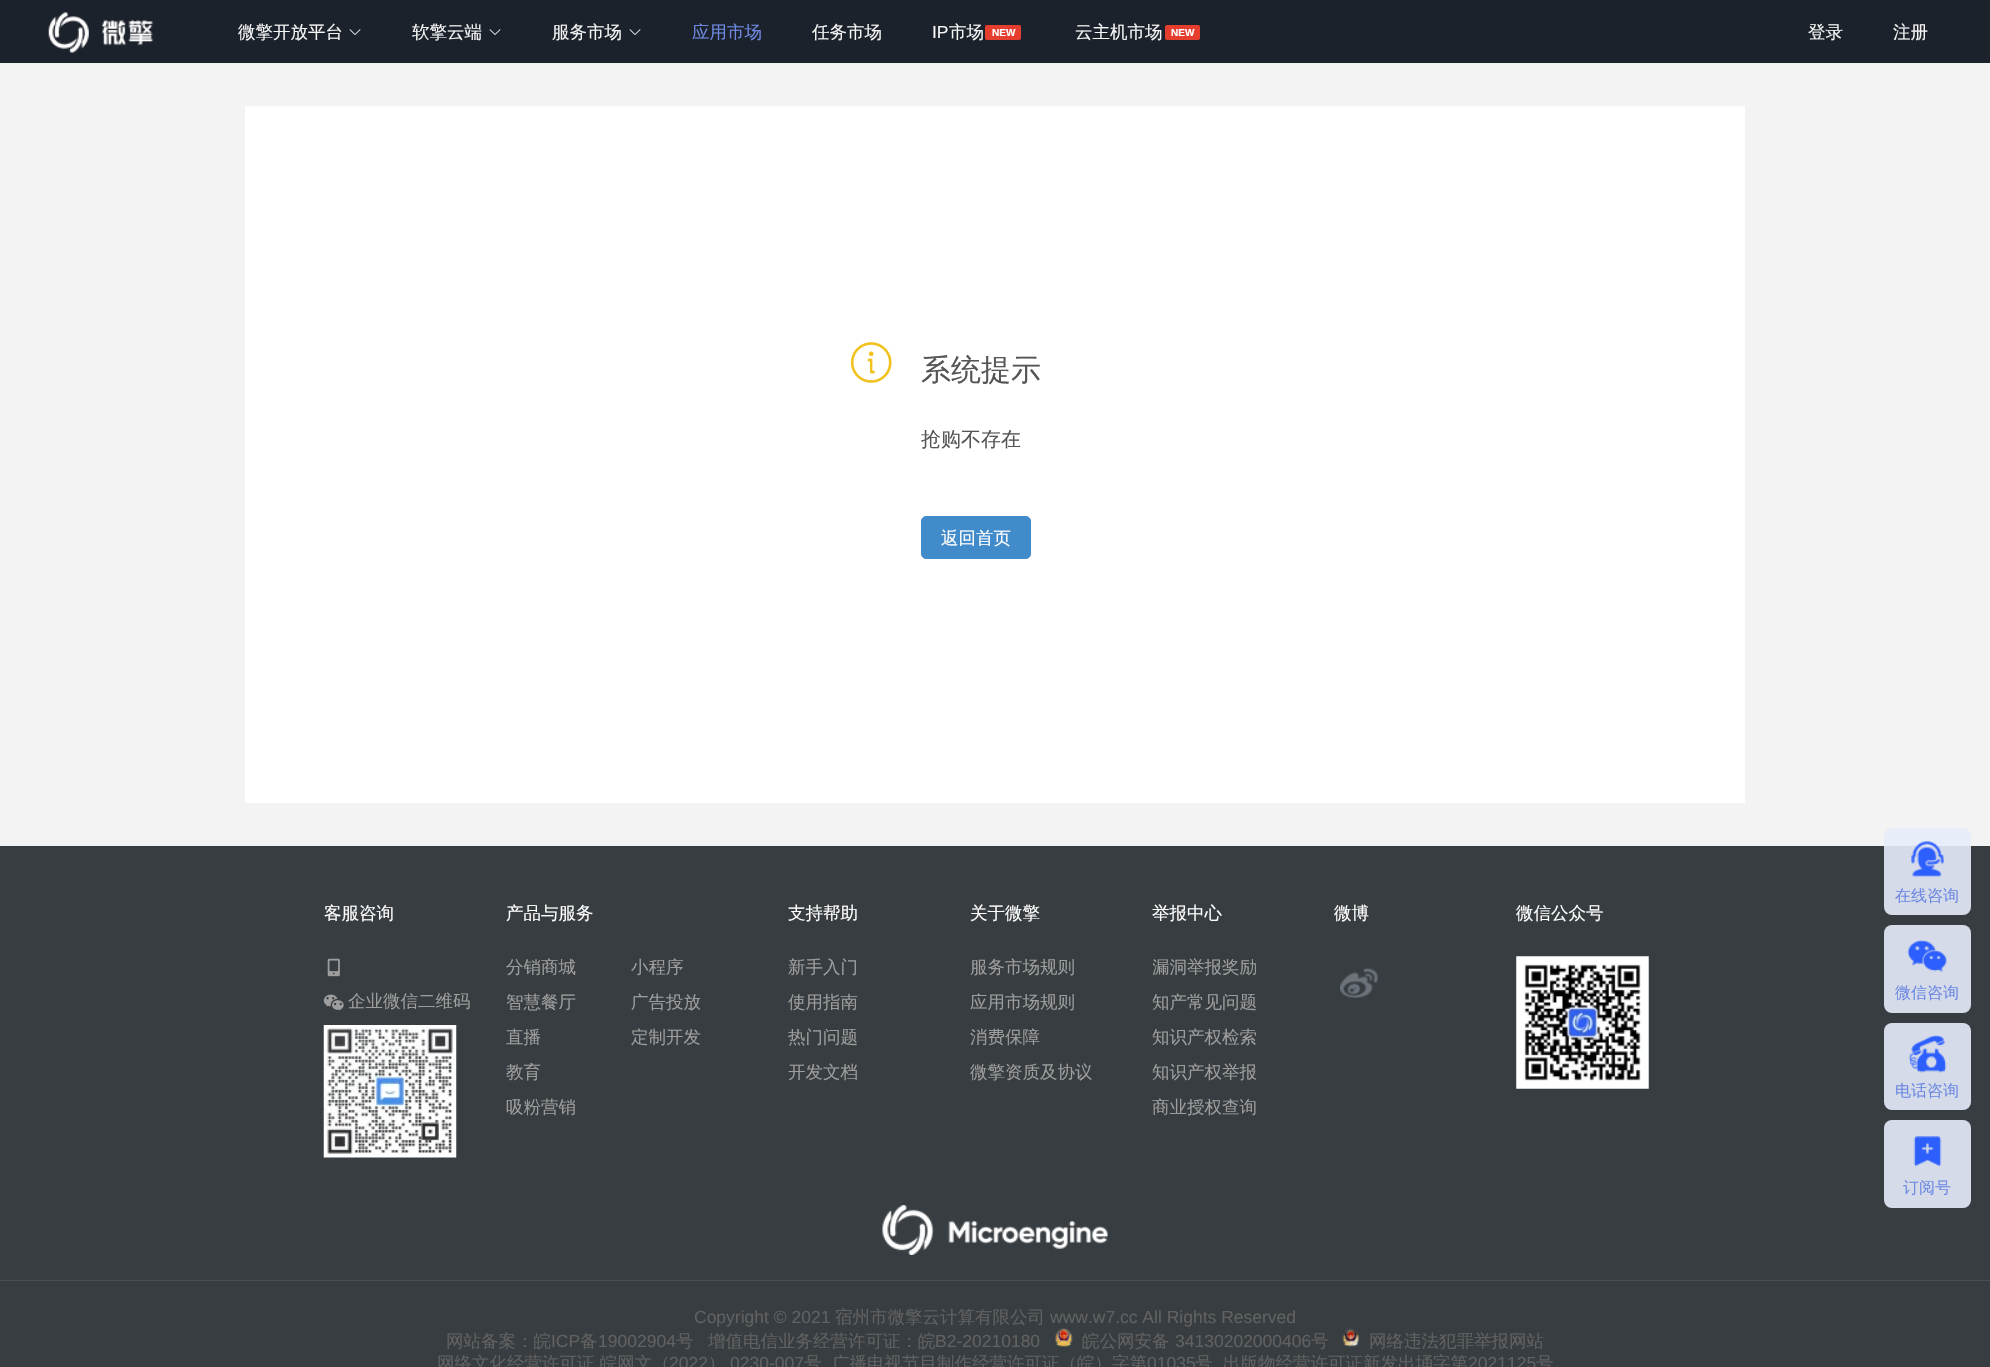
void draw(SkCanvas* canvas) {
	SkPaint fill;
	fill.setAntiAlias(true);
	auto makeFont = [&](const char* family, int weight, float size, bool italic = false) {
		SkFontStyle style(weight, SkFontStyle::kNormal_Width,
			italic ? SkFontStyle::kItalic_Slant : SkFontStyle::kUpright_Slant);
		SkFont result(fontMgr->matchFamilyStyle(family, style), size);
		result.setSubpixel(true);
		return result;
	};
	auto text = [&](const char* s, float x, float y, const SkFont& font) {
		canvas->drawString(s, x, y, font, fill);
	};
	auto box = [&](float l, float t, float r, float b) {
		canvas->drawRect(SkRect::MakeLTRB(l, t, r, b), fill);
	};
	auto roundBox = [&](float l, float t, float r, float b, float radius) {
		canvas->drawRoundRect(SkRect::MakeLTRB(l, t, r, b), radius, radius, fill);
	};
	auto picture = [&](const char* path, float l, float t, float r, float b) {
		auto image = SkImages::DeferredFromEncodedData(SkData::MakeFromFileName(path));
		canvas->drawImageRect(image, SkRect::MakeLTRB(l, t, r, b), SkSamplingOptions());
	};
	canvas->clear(0xFF1C222B);
	picture("image0.png", 48, 12, 153, 53);
	picture("image1.png", 349, 29, 361, 35);
	picture("image1.png", 489, 29, 501, 35);
	picture("image1.png", 629, 29, 641, 35);
	fill.setColor(0xFFE63E2E);
	roundBox(985, 25, 1021, 40, 2);
	roundBox(1165, 25, 1200, 40, 2);
	fill.setColor(0xFFF3F3F3);
	box(0, 63, 1990, 846);
	fill.setColor(0xFF373D41);
	box(0, 846, 1990, 1367);
	fill.setColor(0xE6E7ECFB);
	roundBox(1884, 828, 1971, 915, 8);
	picture("image2.png", 1911, 841, 1944, 877);
	fill.setColor(0xFFD5DBE8);
	roundBox(1884, 925, 1971, 1013, 8);
	picture("image3.png", 1907, 940, 1947, 972);
	roundBox(1884, 1023, 1971, 1110, 8);
	picture("image4.png", 1908, 1035, 1947, 1073);
	roundBox(1884, 1120, 1971, 1208, 8);
	picture("image5.png", 1913, 1136, 1942, 1167);
	fill.setColor(0xFFFFFFFF);
	box(245, 106, 1745, 803);
	picture("image6.png", 850, 342, 892, 383);
	fill.setColor(0xFF428BCA);
	canvas->drawRoundRect(SkRect::MakeLTRB(921.5f, 516.5f, 1030.5f, 558.5f), 4.5f, 4.5f, fill);
	fill.setStyle(SkPaint::kStroke_Style);
	fill.setStrokeWidth(1);
	canvas->drawRoundRect(SkRect::MakeLTRB(921.5f, 516.5f, 1030.5f, 558.5f), 4.5f, 4.5f, fill);
	picture("image7.png", 327, 958, 340, 977);
	picture("image8.png", 323, 994, 344, 1010);
	picture("image9.png", 323, 1025, 457, 1158);
	picture("image10.png", 1340, 968, 1378, 998);
	picture("image11.png", 1516, 956, 1649, 1089);
	picture("image12.png", 882, 1205, 1108, 1255);
	fill.setStyle(SkPaint::kFill_Style);
	fill.setColor(0xFF4B5054);
	box(0, 1280, 1990, 1281);
	picture("image13.png", 1055, 1328, 1073, 1347);
	picture("image14.png", 1342, 1328, 1359, 1347);
	auto font1 = makeFont("WenQuanYi Zen Hei", 500, 17.5f);
	fill.setColor(0xFFF5F5F5);
	text("微擎开放平台", 238, 38, font1);
	text("软擎云端", 412, 38, font1);
	text("服务市场", 552, 38, font1);
	fill.setColor(0xFF6E89E3);
	text("应用市场", 692, 38, font1);
	fill.setColor(0xFFF5F5F5);
	text("任务市场", 812, 38, font1);
	auto font2 = makeFont("Liberation Sans", 400, 17.5f);
	text("IP", 932, 38, font2);
	text("市场", 949, 38, font1);
	auto font3 = makeFont("Liberation Sans", 700, 10);
	fill.setColor(0xFFFFFFFF);
	text("NEW", 992, 36, font3);
	fill.setColor(0xFFF5F5F5);
	text("云主机市场", 1075, 38, font1);
	fill.setColor(0xFFFFFFFF);
	text("NEW", 1171, 36, font3);
	fill.setColor(0xFFF5F5F5);
	text("登录", 1808, 38, font1);
	text("注册", 1893, 38, font1);
	auto font4 = makeFont("WenQuanYi Zen Hei", 500, 16);
	fill.setColor(0xFF6E89E3);
	text("在线咨询", 1895, 901, font4);
	text("微信咨询", 1895, 998, font4);
	text("电话咨询", 1895, 1096, font4);
	text("订阅号", 1903, 1193, font4);
	auto font5 = makeFont("WenQuanYi Zen Hei", 500, 30);
	fill.setColor(0xFF555555);
	text("系统提示", 921, 380, font5);
	auto font6 = makeFont("WenQuanYi Zen Hei", 500, 20);
	text("抢购不存在", 921, 446, font6);
	fill.setColor(0xFFFFFFFF);
	text("返回首页", 941, 544, font1);
	text("客服咨询", 324, 919, font1);
	fill.setColor(0xFF9D9D9D);
	text("企业微信二维码", 348, 1007, font1);
	fill.setColor(0xFFFFFFFF);
	text("产品与服务", 506, 919, font1);
	fill.setColor(0xFF9D9D9D);
	text("分销商城", 506, 973, font1);
	text("小程序", 631, 973, font1);
	text("智慧餐厅", 506, 1008, font1);
	text("广告投放", 631, 1008, font1);
	text("直播", 506, 1043, font1);
	text("定制开发", 631, 1043, font1);
	text("教育", 506, 1078, font1);
	text("吸粉营销", 506, 1113, font1);
	fill.setColor(0xFFFFFFFF);
	text("支持帮助", 788, 919, font1);
	fill.setColor(0xFF9D9D9D);
	text("新手入门", 788, 973, font1);
	text("使用指南", 788, 1008, font1);
	text("热门问题", 788, 1043, font1);
	text("开发文档", 788, 1078, font1);
	fill.setColor(0xFFFFFFFF);
	text("关于微擎", 970, 919, font1);
	fill.setColor(0xFF9D9D9D);
	text("服务市场规则", 970, 973, font1);
	text("应用市场规则", 970, 1008, font1);
	text("消费保障", 970, 1043, font1);
	text("微擎资质及协议", 970, 1078, font1);
	fill.setColor(0xFFFFFFFF);
	text("举报中心", 1152, 919, font1);
	canvas->save();
	canvas->clipRect(SkRect::MakeLTRB(1153, 956, 1278, 991));
	fill.setColor(0xFF9D9D9D);
	text("漏洞举报奖励", 1152, 973, font1);
	canvas->restore();
	text("知产常见问题", 1152, 1008, font1);
	text("知识产权检索", 1152, 1043, font1);
	text("知识产权举报", 1152, 1078, font1);
	text("商业授权查询", 1152, 1113, font1);
	fill.setColor(0xFFFFFFFF);
	text("微博", 1334, 919, font1);
	text("微信公众号", 1516, 919, font1);
	fill.setColor(0xFF616161);
	text("Copyright © 2021", 694, 1323, font2);
	text("宿州市微擎云计算有限公司", 835, 1323, font1);
	text("www.w7.cc All Rights Reserved", 1050, 1323, font2);
	text("网站备案：皖", 446, 1347, font1);
	text("ICP", 551, 1347, font2);
	text("备", 580, 1347, font1);
	text("19002904", 598, 1347, font2);
	text("号", 676, 1347, font1);
	text("增值电信业务经营许可证：皖", 708, 1347, font1);
	text("B2-20210180", 935, 1347, font2);
	text("皖公网安备", 1082, 1347, font1);
	text("34130202000406", 1175, 1347, font2);
	text("号", 1311, 1347, font1);
	text("网络违法犯罪举报网站", 1369, 1347, font1);
	text("网络文化经营许可证 皖网文（", 437, 1369, font1);
	text("2022", 669, 1369, font2);
	text("）", 708, 1369, font1);
	text("0230-007", 730, 1369, font2);
	text("号", 804, 1369, font1);
	text("广播电视节目制作经营许可证（皖）字第", 832, 1369, font1);
	text("01035", 1147, 1369, font2);
	text("号", 1195, 1369, font1);
	text("出版物经营许可证新发出埇字第", 1223, 1369, font1);
	text("2021125", 1468, 1369, font2);
	text("号", 1536, 1369, font1);
}
